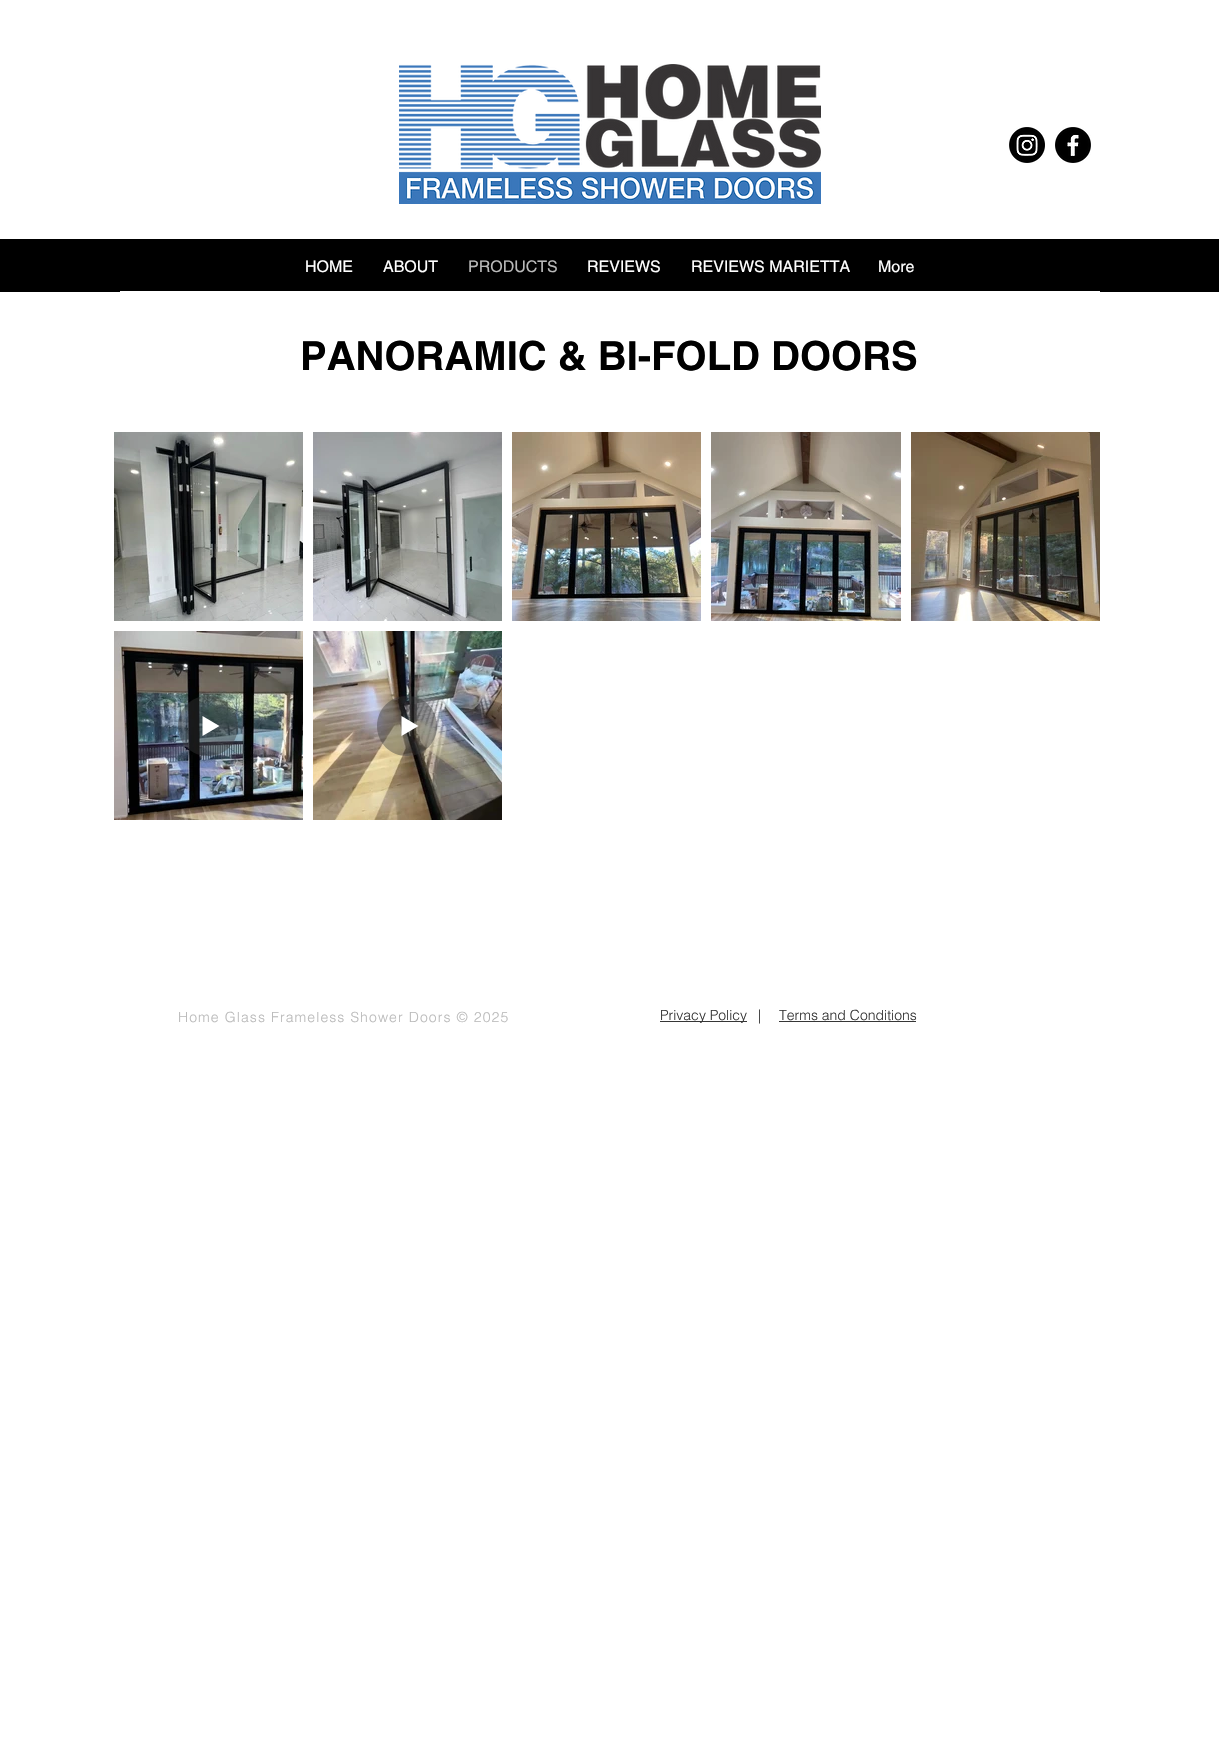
void draw(SkCanvas* canvas) {
	SkPaint fill;
	fill.setAntiAlias(true);
	auto makeFont = [&](const char* family, int weight, float size, bool italic = false) {
		SkFontStyle style(weight, SkFontStyle::kNormal_Width,
			italic ? SkFontStyle::kItalic_Slant : SkFontStyle::kUpright_Slant);
		SkFont result(fontMgr->matchFamilyStyle(family, style), size);
		result.setSubpixel(true);
		return result;
	};
	auto text = [&](const char* s, float x, float y, const SkFont& font) {
		canvas->drawString(s, x, y, font, fill);
	};
	auto spacedText = [&](const char* s, float x, float y, const SkFont& font, const SkPaint& ink, float letter, float word) {
		std::vector<SkGlyphID> glyphs(font.countText(s, strlen(s), SkTextEncoding::kUTF8));
		std::vector<float> xs(glyphs.size());
		font.textToGlyphs(s, strlen(s), SkTextEncoding::kUTF8, glyphs);
		font.getXPos(glyphs, xs, x);
		float extra = 0;
		for (size_t i = 0; i < glyphs.size(); i++) {
			xs[i] += extra;
			extra += letter + word * (glyphs[i] == font.unicharToGlyph(' '));
		}
		canvas->drawTextBlob(SkTextBlob::MakeFromPosHGlyphs(glyphs, xs, y, font), 0, 0, ink);
	};
	auto box = [&](float l, float t, float r, float b) {
		canvas->drawRect(SkRect::MakeLTRB(l, t, r, b), fill);
	};
	auto picture = [&](const char* path, float l, float t, float r, float b) {
		auto image = SkImages::DeferredFromEncodedData(SkData::MakeFromFileName(path));
		canvas->drawImageRect(image, SkRect::MakeLTRB(l, t, r, b), SkSamplingOptions());
	};
	canvas->clear(0xFFFFFFFF);
	picture("image0.png", 399, 64, 821, 204);
	picture("image1.png", 1009, 127, 1045, 163);
	picture("image2.png", 1055, 127, 1091, 163);
	fill.setColor(0xFF000000);
	box(0, 239, 1219, 292);
	fill.setColor(0xFFFFFFFF);
	box(120, 291, 1100, 292);
	picture("image3.png", 114, 432, 303, 621);
	picture("image4.png", 313, 432, 502, 621);
	picture("image5.png", 512, 432, 701, 621);
	picture("image6.png", 711, 432, 901, 621);
	picture("image7.png", 911, 432, 1100, 621);
	picture("image8.png", 114, 631, 303, 820);
	fill.setColor(0x6B363636);
	canvas->drawPath(SkPathBuilder(SkPathFillType::kEvenOdd).moveTo(208, 696).cubicTo(225, 696, 238, 709, 238, 726).cubicTo(238, 743, 225, 756, 208, 756).cubicTo(191, 756, 178, 743, 178, 726).cubicTo(178, 709, 191, 696, 208, 696).close().detach(), fill);
	fill.setColor(0xFFFFFFFF);
	canvas->drawPath(SkPathBuilder().moveTo(219.5f, 726).lineTo(202.5f, 736).lineTo(202.5f, 716).close().detach(), fill);
	picture("image9.png", 313, 631, 502, 820);
	fill.setColor(0x6B363636);
	canvas->drawPath(SkPathBuilder(SkPathFillType::kEvenOdd).moveTo(407, 696).cubicTo(424, 696, 437, 709, 437, 726).cubicTo(437, 743, 424, 756, 407, 756).cubicTo(390, 756, 377, 743, 377, 726).cubicTo(377, 709, 390, 696, 407, 696).close().detach(), fill);
	fill.setColor(0xFFFFFFFF);
	canvas->drawPath(SkPathBuilder().moveTo(418.5f, 726).lineTo(401.5f, 736).lineTo(401.5f, 716).close().detach(), fill);
	fill.setColor(0xFF363636);
	box(660, 1021, 747, 1022);
	box(779, 1021, 916, 1022);
	auto font1 = makeFont("helvetica", 400, 16);
	fill.setColor(0xFFFFFFFF);
	text("HOME", 305, 272, font1);
	text("ABOUT", 383, 272, font1);
	fill.setColor(0xFFBABABA);
	text("PRODUCTS", 468, 272, font1);
	fill.setColor(0xFFFFFFFF);
	text("REVIEWS", 587, 272, font1);
	text("REVIEWS MARIETTA", 691, 272, font1);
	text("More", 878, 272, font1);
	auto font2 = makeFont("helvetica", 700, 40);
	fill.setColor(0xFF000000);
	text("PANORAMIC & BI-FOLD DOORS", 300, 370, font2);
	auto font3 = makeFont("helvetica", 300, 14);
	fill.setColor(0xFFBABABA);
	spacedText("Home Glass Frameless Shower Doors © 2025", 178, 1022, font3, fill, 1.1f, 0);
	fill.setColor(0xFF363636);
	text("Privacy Policy", 660, 1020, font3);
	text("|", 758, 1020, font3);
	text("Terms and Conditions", 779, 1020, font3);
}
